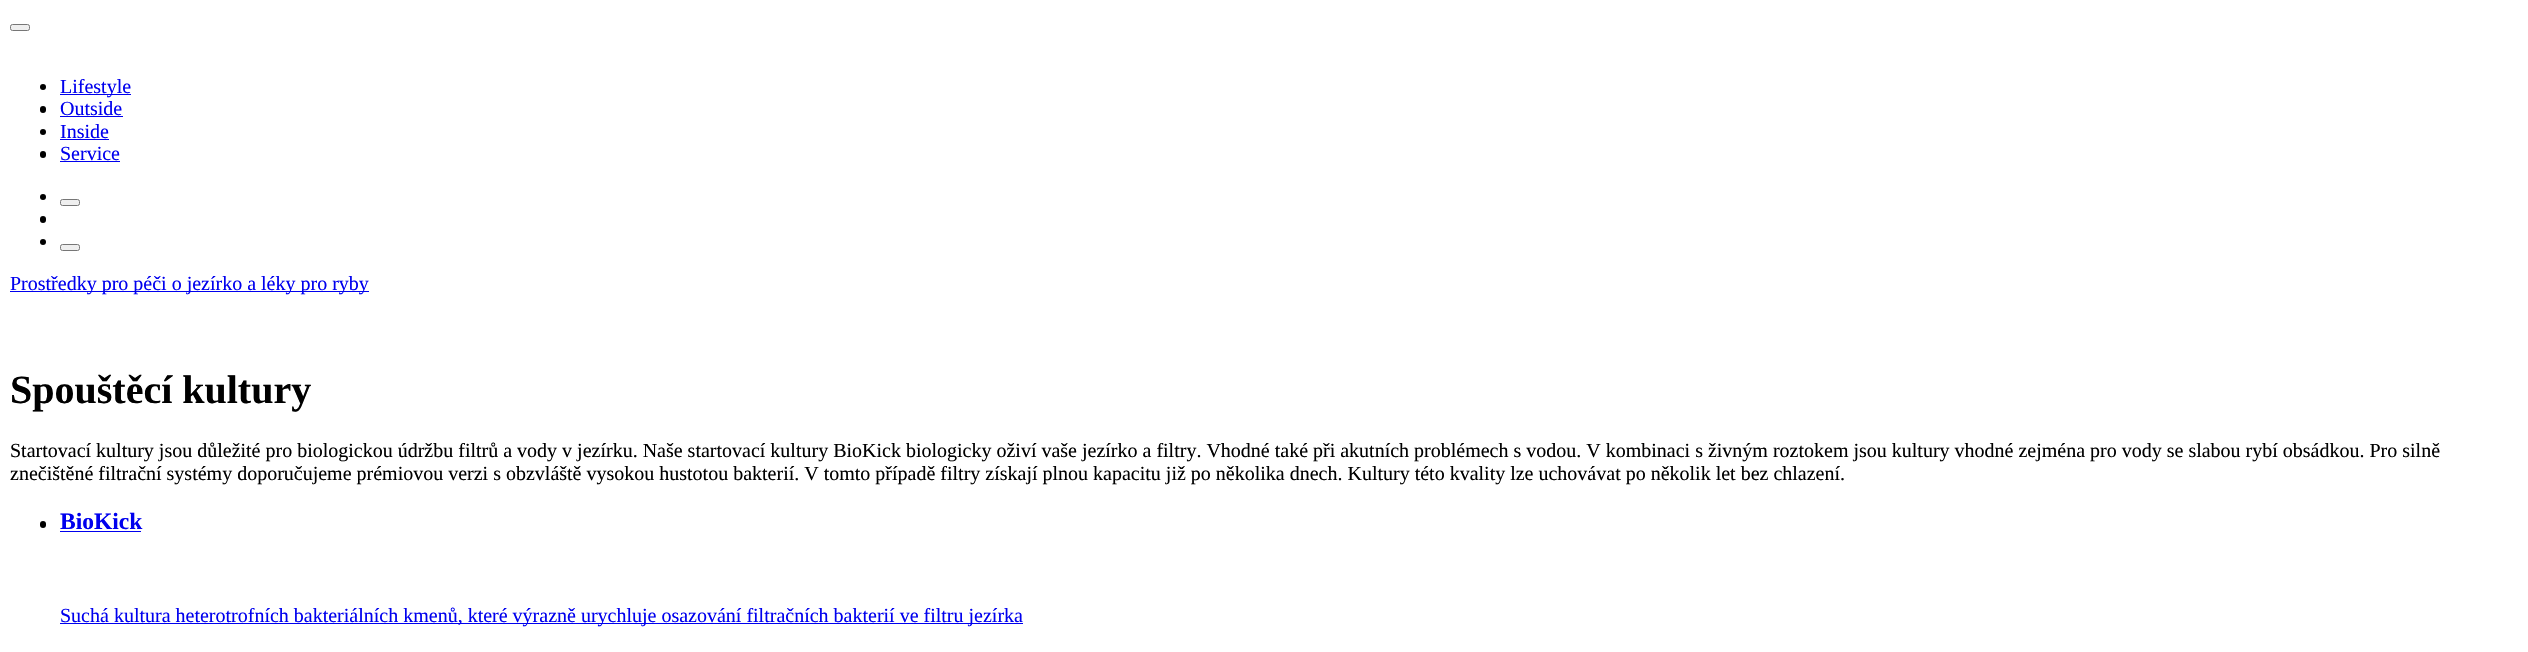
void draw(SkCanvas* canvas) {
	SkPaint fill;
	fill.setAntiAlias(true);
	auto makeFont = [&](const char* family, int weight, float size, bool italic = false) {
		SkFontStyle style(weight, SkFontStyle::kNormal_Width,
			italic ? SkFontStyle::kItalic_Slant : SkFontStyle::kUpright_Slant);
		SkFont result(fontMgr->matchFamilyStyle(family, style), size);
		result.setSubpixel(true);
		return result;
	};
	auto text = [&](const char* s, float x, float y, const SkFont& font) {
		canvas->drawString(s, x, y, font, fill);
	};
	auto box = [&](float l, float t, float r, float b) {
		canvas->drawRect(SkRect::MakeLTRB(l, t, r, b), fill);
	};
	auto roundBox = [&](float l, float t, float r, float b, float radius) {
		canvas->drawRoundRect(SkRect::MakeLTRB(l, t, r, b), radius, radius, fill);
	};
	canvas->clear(0xFFFFFFFF);
	fill.setColor(0xFFEFEFEF);
	canvas->drawRoundRect(SkRect::MakeLTRB(10.5f, 24.5f, 29.5f, 30.5f), 2, 2, fill);
	fill.setStyle(SkPaint::kStroke_Style);
	fill.setStrokeWidth(1);
	fill.setColor(0xFF767676);
	canvas->drawRoundRect(SkRect::MakeLTRB(10.5f, 24.5f, 29.5f, 30.5f), 2, 2, fill);
	fill.setStyle(SkPaint::kFill_Style);
	fill.setColor(0xFF000000);
	canvas->drawCircle(43, 87, 3, fill);
	fill.setColor(0xFF0000EE);
	box(60, 94, 131, 95);
	fill.setColor(0xFF000000);
	roundBox(40, 106, 46, 113, 3);
	fill.setColor(0xFF0000EE);
	box(60, 116, 123, 117);
	fill.setColor(0xFF000000);
	canvas->drawCircle(43, 132, 3, fill);
	fill.setColor(0xFF0000EE);
	box(60, 139, 109, 140);
	fill.setColor(0xFF000000);
	roundBox(40, 151, 46, 158, 3);
	fill.setColor(0xFF0000EE);
	box(60, 161, 120, 162);
	fill.setColor(0xFF000000);
	canvas->drawCircle(43, 197, 3, fill);
	fill.setColor(0xFFEFEFEF);
	canvas->drawRoundRect(SkRect::MakeLTRB(60.5f, 199.5f, 79.5f, 205.5f), 2, 2, fill);
	fill.setStyle(SkPaint::kStroke_Style);
	fill.setColor(0xFF767676);
	canvas->drawRoundRect(SkRect::MakeLTRB(60.5f, 199.5f, 79.5f, 205.5f), 2, 2, fill);
	fill.setStyle(SkPaint::kFill_Style);
	fill.setColor(0xFF000000);
	roundBox(40, 216, 46, 223, 3);
	canvas->drawCircle(43, 242, 3, fill);
	fill.setColor(0xFFEFEFEF);
	canvas->drawRoundRect(SkRect::MakeLTRB(60.5f, 244.5f, 79.5f, 250.5f), 2, 2, fill);
	fill.setStyle(SkPaint::kStroke_Style);
	fill.setColor(0xFF767676);
	canvas->drawRoundRect(SkRect::MakeLTRB(60.5f, 244.5f, 79.5f, 250.5f), 2, 2, fill);
	fill.setStyle(SkPaint::kFill_Style);
	fill.setColor(0xFF0000EE);
	box(10, 291, 369, 292);
	fill.setColor(0xFF000000);
	roundBox(40, 521, 46, 528, 3);
	fill.setColor(0xFF0000EE);
	box(60, 531, 141, 532);
	box(60, 623, 1023, 624);
	auto font1 = makeFont("Liberation Serif", 400, 20);
	text("Lifestyle", 60, 93, font1);
	text("Outside", 60, 115, font1);
	text("Inside", 60, 138, font1);
	text("Service", 60, 160, font1);
	text("Prostředky pro péči o jezírko a léky pro ryby", 10, 290, font1);
	auto font2 = makeFont("Liberation Serif", 700, 40);
	fill.setColor(0xFF000000);
	text("Spouštěcí kultury", 10, 403, font2);
	text("Startovací kultury jsou důležité pro biologickou údržbu filtrů a vody v jezírku. Naše startovací kultury BioKick biologicky oživí vaše jezírko a filtry. Vhodné také při akutních problémech s vodou. V kombinaci s živným roztokem jsou kultury vhodné zejména pro vody se slabou rybí obsádkou. Pro silně", 10, 457, font1);
	text("znečištěné filtrační systémy doporučujeme prémiovou verzi s obzvláště vysokou hustotou bakterií. V tomto případě filtry získají plnou kapacitu již po několika dnech. Kultury této kvality lze uchovávat po několik let bez chlazení.", 10, 480, font1);
	auto font3 = makeFont("Liberation Serif", 700, 23.5f);
	fill.setColor(0xFF0000EE);
	text("BioKick", 60, 529, font3);
	text("Suchá kultura heterotrofních bakteriálních kmenů, které výrazně urychluje osazování filtračních bakterií ve filtru jezírka", 60, 622, font1);
}
